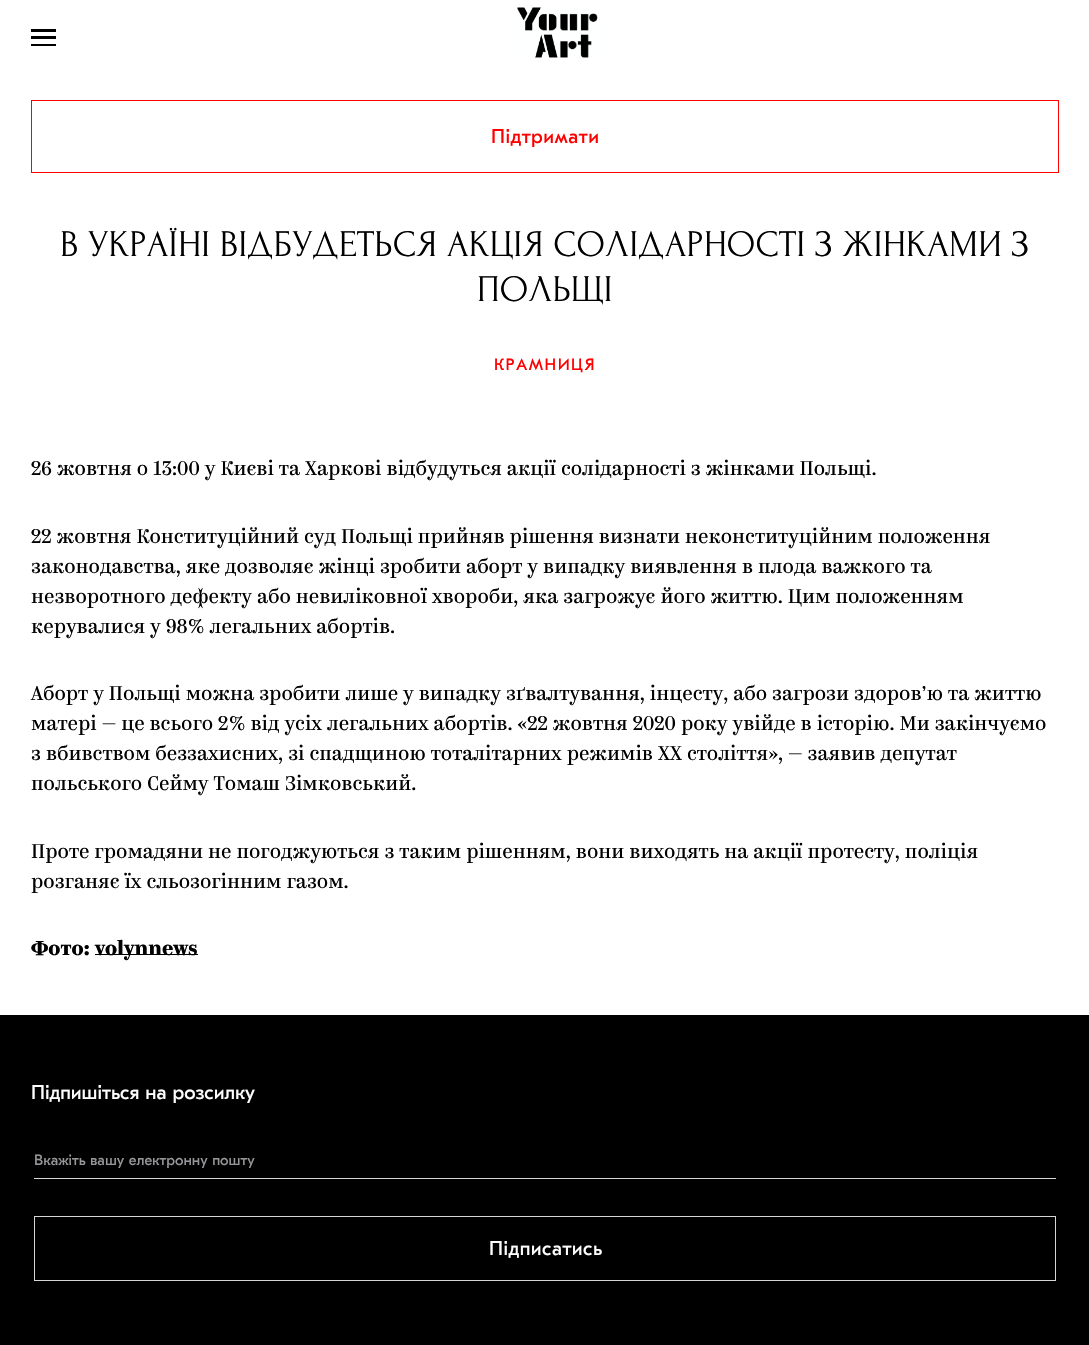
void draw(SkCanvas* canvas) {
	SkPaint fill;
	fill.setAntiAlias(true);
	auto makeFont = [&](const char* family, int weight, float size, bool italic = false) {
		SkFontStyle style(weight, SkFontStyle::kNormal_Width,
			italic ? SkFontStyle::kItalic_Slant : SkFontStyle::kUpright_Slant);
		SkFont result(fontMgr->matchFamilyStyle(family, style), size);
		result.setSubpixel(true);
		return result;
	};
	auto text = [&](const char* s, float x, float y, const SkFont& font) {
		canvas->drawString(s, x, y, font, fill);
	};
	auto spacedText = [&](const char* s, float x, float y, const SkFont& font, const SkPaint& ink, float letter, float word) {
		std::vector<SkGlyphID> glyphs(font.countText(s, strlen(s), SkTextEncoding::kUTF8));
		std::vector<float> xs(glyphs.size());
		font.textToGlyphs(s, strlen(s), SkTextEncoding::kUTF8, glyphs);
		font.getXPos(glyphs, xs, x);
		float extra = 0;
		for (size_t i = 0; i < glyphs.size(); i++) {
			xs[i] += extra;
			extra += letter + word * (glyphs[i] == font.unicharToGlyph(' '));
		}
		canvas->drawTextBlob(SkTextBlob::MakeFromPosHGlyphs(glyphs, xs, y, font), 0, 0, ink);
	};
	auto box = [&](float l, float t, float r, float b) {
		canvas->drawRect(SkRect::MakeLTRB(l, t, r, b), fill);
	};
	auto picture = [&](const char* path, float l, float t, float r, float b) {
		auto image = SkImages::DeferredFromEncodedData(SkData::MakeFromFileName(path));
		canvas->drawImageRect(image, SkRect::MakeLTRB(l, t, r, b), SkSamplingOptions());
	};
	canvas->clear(0xFFFFFFFF);
	fill.setColor(0xFF000000);
	box(31, 29, 56, 32);
	box(31, 36, 56, 39);
	box(31, 44, 56, 46);
	picture("image0.png", 517, 7, 598, 58);
	fill.setStyle(SkPaint::kStroke_Style);
	fill.setStrokeWidth(1);
	fill.setColor(0xFFFF0000);
	canvas->drawRect(SkRect::MakeLTRB(31.5f, 100.5f, 1058.5f, 172.5f), fill);
	fill.setStyle(SkPaint::kFill_Style);
	fill.setColor(0xFF000000);
	box(95, 954, 198, 955);
	box(0, 1015, 1089, 1345);
	fill.setColor(0xFFD6D6D6);
	box(34, 1178, 1056, 1179);
	fill.setStyle(SkPaint::kStroke_Style);
	canvas->drawRect(SkRect::MakeLTRB(34.5f, 1216.5f, 1055.5f, 1280.5f), fill);
	auto font1 = makeFont("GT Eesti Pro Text", 400, 20);
	fill.setStyle(SkPaint::kFill_Style);
	fill.setColor(0xFFFF0000);
	spacedText("Підтримати", 491, 143, font1, fill, 0.5f, 0);
	auto font2 = makeFont("Forum", 400, 37.5f);
	fill.setColor(0xFF000000);
	text("В УКРАЇНІ ВІДБУДЕТЬСЯ АКЦІЯ СОЛІДАРНОСТІ З ЖІНКАМИ З", 60, 256, font2);
	text("ПОЛЬЩІ", 477, 301, font2);
	auto font3 = makeFont("GT Eesti Pro Text", 400, 16.25f);
	fill.setColor(0xFFFF0000);
	spacedText("КРАМНИЦЯ", 494, 370, font3, fill, 1.5f, 0);
	auto font4 = makeFont("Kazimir", 400, 20);
	fill.setColor(0xFF000000);
	text("26 жовтня о 13:00 у Києві та Харкові відбудуться акції солідарності з жінками Польщі.", 31, 475, font4);
	text("22 жовтня Конституційний суд Польщі прийняв рішення визнати неконституційним положення", 31, 543, font4);
	text("законодавства, яке дозволяє жінці зробити аборт у випадку виявлення в плода важкого та", 31, 573, font4);
	text("незворотного дефекту або невиліковної хвороби, яка загрожує його життю. Цим положенням", 31, 603, font4);
	text("керувалися у 98% легальних абортів.", 31, 633, font4);
	text("Аборт у Польщі можна зробити лише у випадку зґвалтування, інцесту, або загрози здоров’ю та життю", 31, 700, font4);
	text("матері — це всього 2% від усіх легальних абортів. «22 жовтня 2020 року увійде в історію. Ми закінчуємо", 31, 730, font4);
	text("з вбивством беззахисних, зі спадщиною тоталітарних режимів ХХ століття», — заявив депутат", 31, 760, font4);
	text("польського Сейму Томаш Зімковський.", 31, 790, font4);
	text("Проте громадяни не погоджуються з таким рішенням, вони виходять на акції протесту, поліція", 31, 858, font4);
	text("розганяє їх сльозогінним газом.", 31, 888, font4);
	auto font5 = makeFont("Kazimir", 700, 20);
	text("Фото:", 31, 955, font5);
	text("volynnews", 95, 955, font5);
	fill.setColor(0xFFFFFFFF);
	text("Підпишіться на розсилку", 31, 1099, font1);
	auto font6 = makeFont("GT Eesti Pro Text", 400, 15);
	fill.setColor(0xFF97979B);
	text("Вкажіть вашу електронну пошту", 34, 1165, font6);
	fill.setColor(0xFFFFFFFF);
	spacedText("Підписатись", 489, 1255, font1, fill, 0.5f, 0);
}
